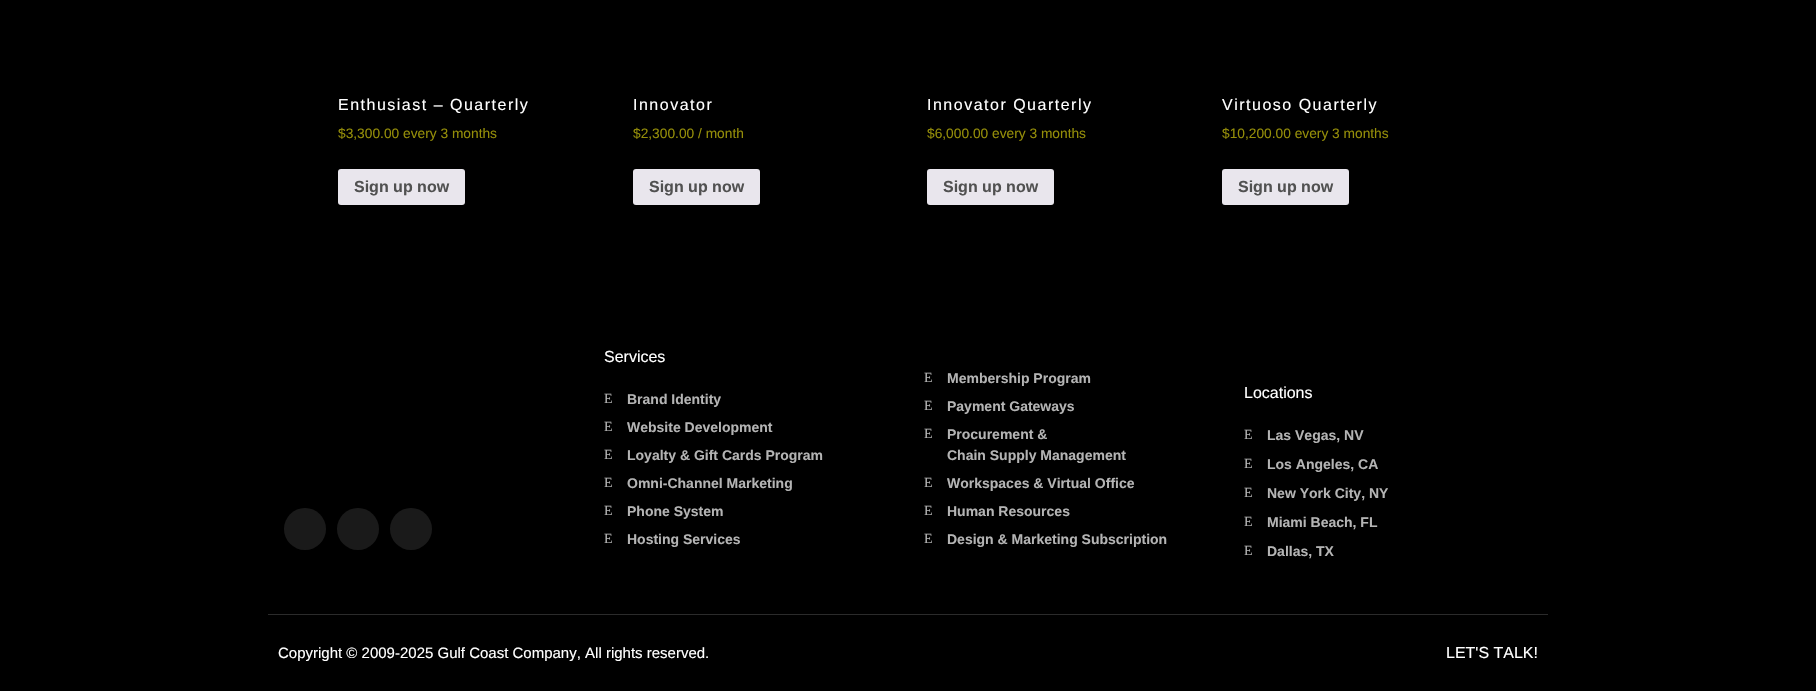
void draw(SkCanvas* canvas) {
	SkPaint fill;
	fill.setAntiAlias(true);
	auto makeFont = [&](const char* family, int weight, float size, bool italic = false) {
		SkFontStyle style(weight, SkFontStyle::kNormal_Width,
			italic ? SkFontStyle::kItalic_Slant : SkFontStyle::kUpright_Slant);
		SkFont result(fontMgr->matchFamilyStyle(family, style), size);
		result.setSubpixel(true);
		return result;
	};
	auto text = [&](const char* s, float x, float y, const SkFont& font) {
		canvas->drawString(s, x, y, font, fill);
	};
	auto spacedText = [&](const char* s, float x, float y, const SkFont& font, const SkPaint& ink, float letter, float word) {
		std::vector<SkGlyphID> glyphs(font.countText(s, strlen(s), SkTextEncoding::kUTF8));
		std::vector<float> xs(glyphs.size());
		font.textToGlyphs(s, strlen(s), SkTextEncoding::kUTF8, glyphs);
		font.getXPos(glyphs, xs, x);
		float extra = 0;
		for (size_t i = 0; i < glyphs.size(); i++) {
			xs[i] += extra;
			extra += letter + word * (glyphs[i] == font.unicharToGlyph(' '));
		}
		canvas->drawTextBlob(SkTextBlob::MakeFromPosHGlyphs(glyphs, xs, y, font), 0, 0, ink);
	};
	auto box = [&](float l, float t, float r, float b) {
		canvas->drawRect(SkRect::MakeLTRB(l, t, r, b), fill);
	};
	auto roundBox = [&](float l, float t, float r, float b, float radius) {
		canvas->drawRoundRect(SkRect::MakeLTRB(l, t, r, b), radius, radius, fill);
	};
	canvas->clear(0xFF000000);
	fill.setColor(0xFFE9E6ED);
	roundBox(338, 169, 465, 205, 3);
	roundBox(633, 169, 760, 205, 3);
	roundBox(927, 169, 1054, 205, 3);
	roundBox(1222, 169, 1349, 205, 3);
	fill.setColor(0xFF2B2B2B);
	box(268, 614, 1548, 615);
	fill.setColor(0xFF1A1A1A);
	canvas->drawCircle(305, 529, 21, fill);
	canvas->drawCircle(358, 529, 21, fill);
	canvas->drawCircle(411, 529, 21, fill);
	auto font1 = makeFont("Liberation Sans", 400, 16);
	fill.setColor(0xFFFFFFFF);
	spacedText("Enthusiast – Quarterly", 338, 110, font1, fill, 1.5f, 0);
	auto font2 = makeFont("Liberation Sans", 400, 13.75f);
	fill.setColor(0xFF958E09);
	text("$3,300.00 every 3 months", 338, 138, font2);
	auto font3 = makeFont("Liberation Sans", 700, 16);
	fill.setColor(0xFF515151);
	text("Sign up now", 354, 192, font3);
	fill.setColor(0xFFFFFFFF);
	spacedText("Innovator", 633, 110, font1, fill, 1.5f, 0);
	fill.setColor(0xFF958E09);
	text("$2,300.00 / month", 633, 138, font2);
	fill.setColor(0xFF515151);
	text("Sign up now", 649, 192, font3);
	fill.setColor(0xFFFFFFFF);
	spacedText("Innovator Quarterly", 927, 110, font1, fill, 1.5f, 0);
	fill.setColor(0xFF958E09);
	text("$6,000.00 every 3 months", 927, 138, font2);
	fill.setColor(0xFF515151);
	text("Sign up now", 943, 192, font3);
	fill.setColor(0xFFFFFFFF);
	spacedText("Virtuoso Quarterly", 1222, 110, font1, fill, 1.5f, 0);
	fill.setColor(0xFF958E09);
	text("$10,200.00 every 3 months", 1222, 138, font2);
	fill.setColor(0xFF515151);
	text("Sign up now", 1238, 192, font3);
	fill.setColor(0xFFFFFFFF);
	text("Services", 604, 362, font1);
	auto font4 = makeFont("Liberation Serif", 400, 14);
	fill.setColor(0xFFB4B4B4);
	text("E", 604, 403, font4);
	auto font5 = makeFont("Liberation Sans", 700, 14);
	text("Brand Identity", 627, 404, font5);
	text("E", 604, 431, font4);
	text("Website Development", 627, 432, font5);
	text("E", 604, 459, font4);
	text("Loyalty & Gift Cards Program", 627, 460, font5);
	text("E", 604, 487, font4);
	text("Omni-Channel Marketing", 627, 488, font5);
	text("E", 604, 515, font4);
	text("Phone System", 627, 516, font5);
	text("E", 604, 543, font4);
	text("Hosting Services", 627, 544, font5);
	text("E", 924, 382, font4);
	text("Membership Program", 947, 383, font5);
	text("E", 924, 410, font4);
	text("Payment Gateways", 947, 411, font5);
	text("E", 924, 438, font4);
	text("Procurement &", 947, 439, font5);
	text("Chain Supply Management", 947, 460, font5);
	text("E", 924, 487, font4);
	text("Workspaces & Virtual Office", 947, 488, font5);
	text("E", 924, 515, font4);
	text("Human Resources", 947, 516, font5);
	text("E", 924, 543, font4);
	text("Design & Marketing Subscription", 947, 544, font5);
	fill.setColor(0xFFFFFFFF);
	text("Locations", 1244, 398, font1);
	fill.setColor(0xFFB4B4B4);
	text("E", 1244, 439, font4);
	text("Las Vegas, NV", 1267, 440, font5);
	text("E", 1244, 468, font4);
	text("Los Angeles, CA", 1267, 469, font5);
	text("E", 1244, 497, font4);
	text("New York City, NY", 1267, 498, font5);
	text("E", 1244, 526, font4);
	text("Miami Beach, FL", 1267, 527, font5);
	text("E", 1244, 555, font4);
	text("Dallas, TX", 1267, 556, font5);
	auto font6 = makeFont("Liberation Sans", 400, 15);
	fill.setColor(0xFFFFFFFF);
	text("Copyright © 2009-2025 Gulf Coast Company, All rights reserved.", 278, 658, font6);
	text("LET'S TALK!", 1446, 658, font1);
}
